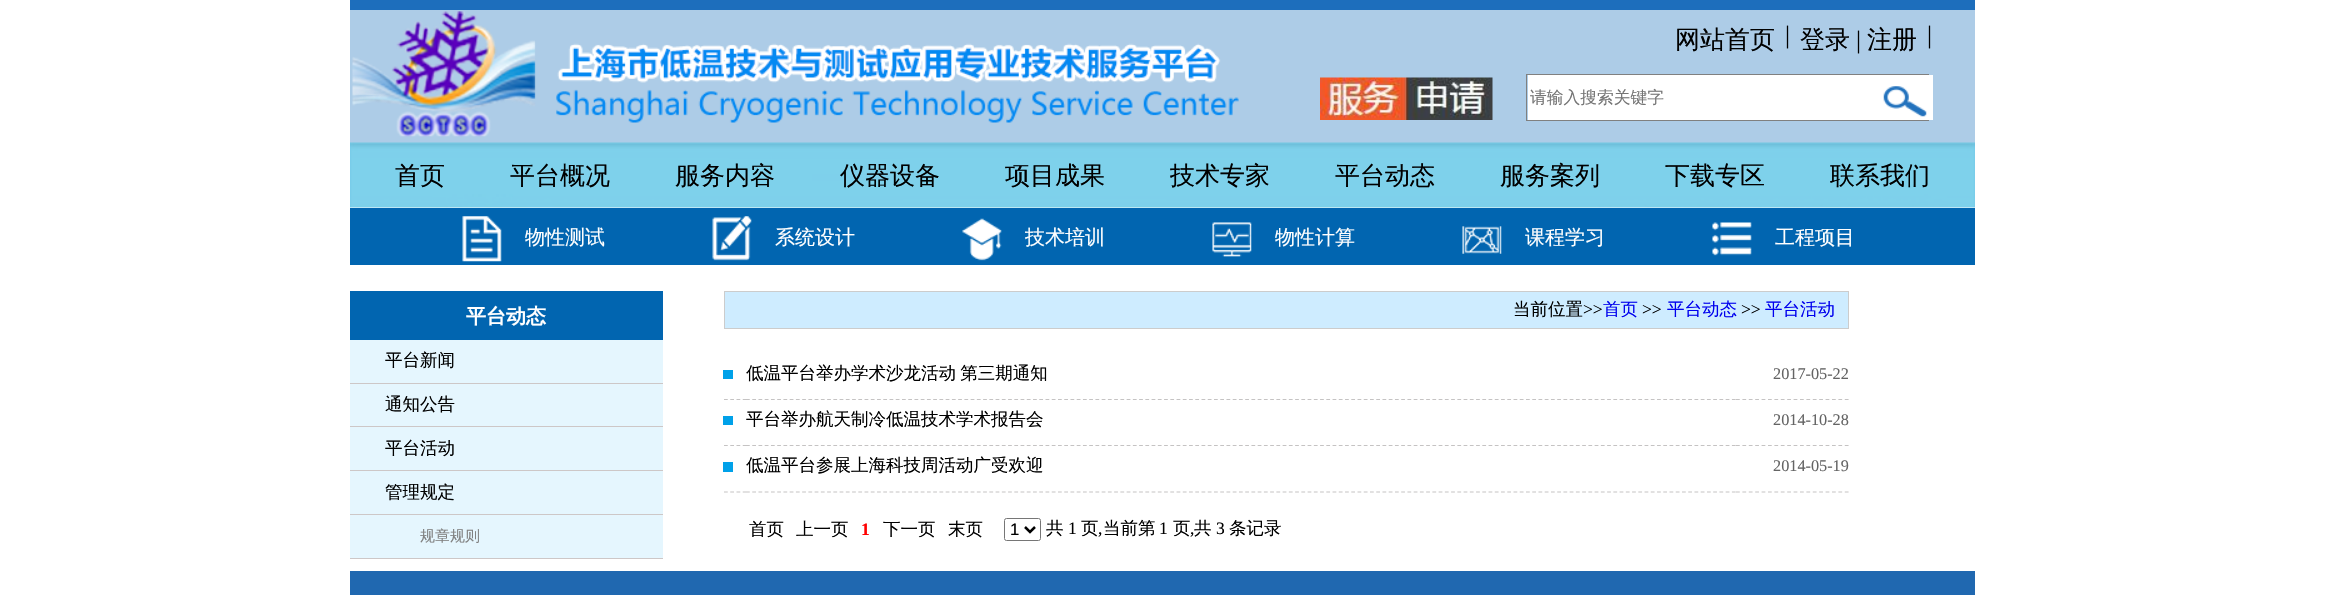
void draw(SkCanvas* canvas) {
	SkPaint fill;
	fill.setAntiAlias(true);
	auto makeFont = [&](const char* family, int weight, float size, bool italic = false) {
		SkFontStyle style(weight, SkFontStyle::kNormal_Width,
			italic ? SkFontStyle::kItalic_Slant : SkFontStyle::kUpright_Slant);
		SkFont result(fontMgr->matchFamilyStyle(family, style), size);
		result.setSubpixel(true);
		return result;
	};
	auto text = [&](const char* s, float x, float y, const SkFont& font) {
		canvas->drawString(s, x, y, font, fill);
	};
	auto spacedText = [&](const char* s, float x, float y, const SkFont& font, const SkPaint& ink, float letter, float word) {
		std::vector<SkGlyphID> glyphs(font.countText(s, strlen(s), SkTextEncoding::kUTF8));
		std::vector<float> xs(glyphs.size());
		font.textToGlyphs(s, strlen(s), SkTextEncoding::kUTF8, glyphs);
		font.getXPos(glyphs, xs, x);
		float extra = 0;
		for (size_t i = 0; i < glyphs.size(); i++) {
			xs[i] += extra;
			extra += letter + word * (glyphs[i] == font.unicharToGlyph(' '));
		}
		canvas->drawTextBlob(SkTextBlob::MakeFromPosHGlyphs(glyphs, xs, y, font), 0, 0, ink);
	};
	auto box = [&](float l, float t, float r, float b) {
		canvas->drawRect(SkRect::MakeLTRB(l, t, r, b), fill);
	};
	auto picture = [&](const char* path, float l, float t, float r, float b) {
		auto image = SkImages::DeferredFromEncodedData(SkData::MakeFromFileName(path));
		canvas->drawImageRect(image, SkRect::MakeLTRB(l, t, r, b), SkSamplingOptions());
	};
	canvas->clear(0xFFFFFFFF);
	fill.setColor(0xFF1D6EBC);
	box(350, 0, 1975, 10);
	fill.setColor(0xFFADCCE7);
	box(350, 10, 1975, 143);
	picture("image0.png", 352, 11, 1239, 137);
	picture("image1.png", 1320, 77, 1493, 120);
	fill.setStyle(SkPaint::kStroke_Style);
	fill.setStrokeWidth(1);
	fill.setColor(0xFF808080);
	canvas->drawRect(SkRect::MakeLTRB(1526.5f, 74.5f, 1928.5f, 120.5f), fill);
	fill.setStyle(SkPaint::kFill_Style);
	fill.setColor(0xFFFFFFFF);
	box(1528, 75, 1933, 120);
	picture("image2.png", 1883, 86, 1927, 117);
	picture("image3.png", 350, 142, 1975, 208);
	fill.setColor(0xFF0165B0);
	box(350, 208, 1975, 265);
	picture("image4.png", 462, 216, 502, 262);
	picture("image5.png", 712, 216, 752, 261);
	picture("image6.png", 962, 218, 1002, 261);
	picture("image7.png", 1212, 222, 1252, 257);
	picture("image8.png", 1462, 226, 1502, 254);
	picture("image9.png", 1712, 222, 1752, 256);
	box(350, 291, 663, 340);
	fill.setColor(0xFFE5F6FE);
	box(350, 340, 663, 558);
	fill.setColor(0xFFCDC7C7);
	box(350, 383, 663, 384);
	box(350, 426, 663, 427);
	box(350, 470, 663, 471);
	box(350, 514, 663, 515);
	box(350, 558, 663, 559);
	fill.setColor(0xFFCEECFF);
	canvas->drawRect(SkRect::MakeLTRB(724.5f, 291.5f, 1848.5f, 328.5f), fill);
	fill.setStyle(SkPaint::kStroke_Style);
	fill.setColor(0xFFCCCCCC);
	canvas->drawRect(SkRect::MakeLTRB(724.5f, 291.5f, 1848.5f, 328.5f), fill);
	fill.setStrokeWidth(1.2f);
	fill.setColor(0xFFC5C3C3);
	fill.setPathEffect(SkDashPathEffect::Make({{3.75f, 2.5f}}, 0));
	canvas->drawPath(SkPathBuilder().moveTo(724, 399.5f).lineTo(746, 399.5f).detach(), fill);
	fill.setPathEffect(nullptr);
	fill.setStyle(SkPaint::kFill_Style);
	fill.setColor(0xFF00A1E9);
	box(723, 370, 733, 379);
	fill.setStyle(SkPaint::kStroke_Style);
	fill.setColor(0xFFC5C3C3);
	fill.setPathEffect(SkDashPathEffect::Make({{3.75f, 2.49f}}, 0));
	canvas->drawPath(SkPathBuilder().moveTo(746, 399.5f).lineTo(1736, 399.5f).detach(), fill);
	fill.setPathEffect(nullptr);
	fill.setPathEffect(SkDashPathEffect::Make({{3.75f, 2.65f}}, 0));
	canvas->drawPath(SkPathBuilder().moveTo(1736, 399.5f).lineTo(1849, 399.5f).detach(), fill);
	fill.setPathEffect(nullptr);
	fill.setPathEffect(SkDashPathEffect::Make({{3.75f, 2.5f}}, 0));
	canvas->drawPath(SkPathBuilder().moveTo(724, 445.5f).lineTo(746, 445.5f).detach(), fill);
	fill.setPathEffect(nullptr);
	fill.setStyle(SkPaint::kFill_Style);
	fill.setColor(0xFF00A1E9);
	box(723, 416, 733, 425);
	fill.setStyle(SkPaint::kStroke_Style);
	fill.setColor(0xFFC5C3C3);
	fill.setPathEffect(SkDashPathEffect::Make({{3.75f, 2.49f}}, 0));
	canvas->drawPath(SkPathBuilder().moveTo(746, 445.5f).lineTo(1736, 445.5f).detach(), fill);
	fill.setPathEffect(nullptr);
	fill.setPathEffect(SkDashPathEffect::Make({{3.75f, 2.65f}}, 0));
	canvas->drawPath(SkPathBuilder().moveTo(1736, 445.5f).lineTo(1849, 445.5f).detach(), fill);
	fill.setPathEffect(nullptr);
	fill.setPathEffect(SkDashPathEffect::Make({{3.75f, 2.5f}}, 0));
	canvas->drawPath(SkPathBuilder().moveTo(724, 492).lineTo(746, 492).detach(), fill);
	fill.setPathEffect(nullptr);
	fill.setStyle(SkPaint::kFill_Style);
	fill.setColor(0xFF00A1E9);
	box(723, 462, 733, 472);
	fill.setStyle(SkPaint::kStroke_Style);
	fill.setColor(0xFFC5C3C3);
	fill.setPathEffect(SkDashPathEffect::Make({{3.75f, 2.49f}}, 0));
	canvas->drawPath(SkPathBuilder().moveTo(746, 492).lineTo(1736, 492).detach(), fill);
	fill.setPathEffect(nullptr);
	fill.setPathEffect(SkDashPathEffect::Make({{3.75f, 2.65f}}, 0));
	canvas->drawPath(SkPathBuilder().moveTo(1736, 492).lineTo(1849, 492).detach(), fill);
	fill.setPathEffect(nullptr);
	fill.setStrokeWidth(1);
	fill.setColor(0xFF767676);
	canvas->drawRoundRect(SkRect::MakeLTRB(1004.5f, 518.5f, 1040.5f, 540.5f), 2, 2, fill);
	fill.setStrokeWidth(2.5f);
	fill.setColor(0xFF000000);
	canvas->drawPath(SkPathBuilder().moveTo(1025, 527).lineTo(1030, 532).lineTo(1035, 527).detach(), fill);
	fill.setStyle(SkPaint::kFill_Style);
	fill.setColor(0xFF2068B0);
	box(350, 571, 1975, 595);
	auto font1 = makeFont("WenQuanYi Zen Hei", 500, 25);
	fill.setColor(0xFF000000);
	text("网站首页", 1675, 48, font1);
	auto font2 = makeFont("Liberation Serif", 400, 25);
	text("|", 1785, 43, font2);
	text("登录", 1800, 48, font1);
	text("|", 1856, 48, font2);
	text("注册", 1867, 48, font1);
	text("|", 1927, 43, font2);
	auto font3 = makeFont("WenQuanYi Zen Hei", 500, 16.75f);
	fill.setColor(0xFF757575);
	text("请输入搜索关键字", 1530, 103, font3);
	fill.setColor(0xFF000000);
	text("首页", 395, 184, font1);
	text("平台概况", 510, 184, font1);
	text("服务内容", 675, 184, font1);
	text("仪器设备", 840, 184, font1);
	text("项目成果", 1005, 184, font1);
	text("技术专家", 1170, 184, font1);
	text("平台动态", 1335, 184, font1);
	text("服务案列", 1500, 184, font1);
	text("下载专区", 1665, 184, font1);
	text("联系我们", 1830, 184, font1);
	auto font4 = makeFont("WenQuanYi Zen Hei", 500, 20);
	fill.setColor(0xFFFFFFFF);
	text("物性测试", 525, 244, font4);
	text("系统设计", 775, 244, font4);
	text("技术培训", 1025, 244, font4);
	text("物性计算", 1275, 244, font4);
	text("课程学习", 1525, 244, font4);
	text("工程项目", 1775, 244, font4);
	auto font5 = makeFont("WenQuanYi Zen Hei", 700, 20);
	text("平台动态", 466, 323, font5);
	auto font6 = makeFont("WenQuanYi Zen Hei", 500, 17.5f);
	fill.setColor(0xFF000000);
	text("平台新闻", 385, 366, font6);
	text("通知公告", 385, 410, font6);
	text("平台活动", 385, 454, font6);
	text("管理规定", 385, 498, font6);
	auto font7 = makeFont("WenQuanYi Zen Hei", 500, 15);
	fill.setColor(0xFF808080);
	text("规章规则", 420, 541, font7);
	fill.setColor(0xFF000000);
	text("当前位置", 1513, 315, font6);
	auto font8 = makeFont("Liberation Serif", 400, 17.5f);
	text(">>", 1583, 315, font8);
	fill.setColor(0xFF0000EE);
	text("首页", 1603, 315, font6);
	fill.setColor(0xFF000000);
	text(">>", 1642, 315, font8);
	fill.setColor(0xFF0000EE);
	text("平台动态", 1667, 315, font6);
	fill.setColor(0xFF000000);
	text(">>", 1741, 315, font8);
	fill.setColor(0xFF0000EE);
	text("平台活动", 1765, 315, font6);
	fill.setColor(0xFF000000);
	spacedText("低温平台举办学术沙龙活动 第三期通知", 746, 379, font6, fill, 0, -1);
	auto font9 = makeFont("Liberation Serif", 400, 16.25f);
	fill.setColor(0xFF646464);
	text("2017-05-22", 1773, 379, font9);
	fill.setColor(0xFF000000);
	text("平台举办航天制冷低温技术学术报告会", 746, 425, font6);
	fill.setColor(0xFF646464);
	text("2014-10-28", 1773, 425, font9);
	fill.setColor(0xFF000000);
	text("低温平台参展上海科技周活动广受欢迎", 746, 471, font6);
	fill.setColor(0xFF646464);
	text("2014-05-19", 1773, 471, font9);
	fill.setColor(0xFF000000);
	text("首页", 749, 535, font6);
	text("上一页", 796, 535, font6);
	auto font10 = makeFont("Liberation Serif", 700, 17.5f);
	fill.setColor(0xFFFF0000);
	text("1", 861, 535, font10);
	fill.setColor(0xFF000000);
	text("下一页", 883, 535, font6);
	text("末页", 948, 535, font6);
	auto font11 = makeFont("Liberation Sans", 400, 16.75f);
	text("1", 1010, 535, font11);
	text("共", 1046, 534, font6);
	text("1", 1068, 534, font8);
	text("页", 1081, 534, font6);
	text(",", 1098, 534, font8);
	text("当前第", 1103, 534, font6);
	text("1", 1159, 534, font8);
	text("页", 1173, 534, font6);
	text(",", 1190, 534, font8);
	text("共", 1194, 534, font6);
	text("3", 1216, 534, font8);
	text("条记录", 1229, 534, font6);
}
